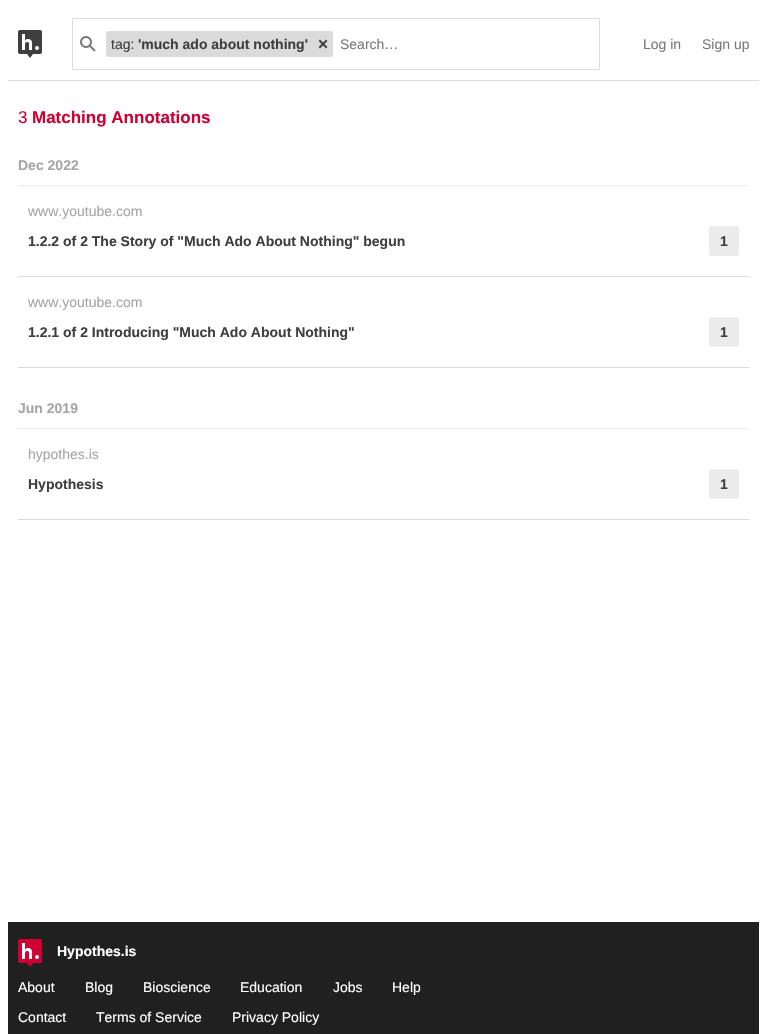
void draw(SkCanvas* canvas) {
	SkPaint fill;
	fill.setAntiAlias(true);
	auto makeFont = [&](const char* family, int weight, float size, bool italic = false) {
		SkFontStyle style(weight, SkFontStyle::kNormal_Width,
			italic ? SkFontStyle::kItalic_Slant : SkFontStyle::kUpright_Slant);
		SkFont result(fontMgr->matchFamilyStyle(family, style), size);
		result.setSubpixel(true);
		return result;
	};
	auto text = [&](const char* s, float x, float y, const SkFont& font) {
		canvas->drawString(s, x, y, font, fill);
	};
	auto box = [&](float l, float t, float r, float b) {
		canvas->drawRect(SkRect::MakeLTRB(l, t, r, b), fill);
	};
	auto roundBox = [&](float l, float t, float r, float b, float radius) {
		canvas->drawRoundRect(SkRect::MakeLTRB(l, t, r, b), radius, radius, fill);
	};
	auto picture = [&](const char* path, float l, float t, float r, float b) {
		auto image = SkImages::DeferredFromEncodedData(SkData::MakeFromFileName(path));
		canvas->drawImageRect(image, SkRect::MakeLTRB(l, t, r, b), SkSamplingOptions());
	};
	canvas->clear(0xFFFFFFFF);
	fill.setColor(0xFFDBDBDB);
	box(8, 80, 759, 81);
	picture("image0.png", 18, 30, 42, 58);
	fill.setStyle(SkPaint::kStroke_Style);
	fill.setStrokeWidth(1);
	canvas->drawRoundRect(SkRect::MakeLTRB(72.5f, 18.5f, 599.5f, 69.5f), 1.5f, 1.5f, fill);
	picture("image1.png", 80, 36, 96, 52);
	fill.setStyle(SkPaint::kFill_Style);
	roundBox(106, 31, 333, 57, 2);
	picture("image2.png", 318, 39, 328, 49);
	fill.setColor(0xFFECECEC);
	box(18, 185, 749, 186);
	fill.setColor(0xFFDBDBDB);
	box(18, 276, 749, 277);
	fill.setColor(0xFFECECEC);
	roundBox(709, 226, 739, 256, 2);
	fill.setColor(0xFFDBDBDB);
	box(18, 367, 749, 368);
	fill.setColor(0xFFECECEC);
	roundBox(709, 317, 739, 347, 2);
	box(18, 428, 749, 429);
	fill.setColor(0xFFDBDBDB);
	box(18, 519, 749, 520);
	fill.setColor(0xFFECECEC);
	roundBox(709, 469, 739, 499, 2);
	fill.setColor(0xFF202020);
	box(8, 922, 759, 1034);
	picture("image3.png", 18, 939, 42, 967);
	auto font1 = makeFont("Liberation Sans", 400, 14);
	fill.setColor(0xFF3F3F3F);
	text("tag:", 111, 49, font1);
	auto font2 = makeFont("Liberation Sans", 700, 14);
	text("'much ado about nothing'", 138, 49, font2);
	fill.setColor(0xFF7A7A7A);
	text("Search…", 340, 49, font1);
	text("Log in", 643, 49, font1);
	text("Sign up", 702, 49, font1);
	auto font3 = makeFont("Liberation Sans", 400, 17);
	fill.setColor(0xFFD00032);
	text("3", 18, 123, font3);
	auto font4 = makeFont("Liberation Sans", 700, 17);
	text("Matching Annotations", 32, 123, font4);
	fill.setColor(0xFFA6A6A6);
	text("Dec 2022", 18, 170, font2);
	text("www.youtube.com", 28, 216, font1);
	fill.setColor(0xFF3F3F3F);
	text("1.2.2 of 2 The Story of \"Much Ado About Nothing\" begun", 28, 246, font2);
	text("1", 720, 246, font2);
	fill.setColor(0xFFA6A6A6);
	text("www.youtube.com", 28, 307, font1);
	fill.setColor(0xFF3F3F3F);
	text("1.2.1 of 2 Introducing \"Much Ado About Nothing\"", 28, 337, font2);
	text("1", 720, 337, font2);
	fill.setColor(0xFFA6A6A6);
	text("Jun 2019", 18, 413, font2);
	text("hypothes.is", 28, 459, font1);
	fill.setColor(0xFF3F3F3F);
	text("Hypothesis", 28, 489, font2);
	text("1", 720, 489, font2);
	fill.setColor(0xFFFFFFFF);
	text("Hypothes.is", 57, 956, font2);
	text("About", 18, 992, font1);
	text("Blog", 85, 992, font1);
	text("Bioscience", 143, 992, font1);
	text("Education", 240, 992, font1);
	text("Jobs", 333, 992, font1);
	text("Help", 392, 992, font1);
	text("Contact", 18, 1022, font1);
	text("Terms of Service", 96, 1022, font1);
	text("Privacy Policy", 232, 1022, font1);
}
